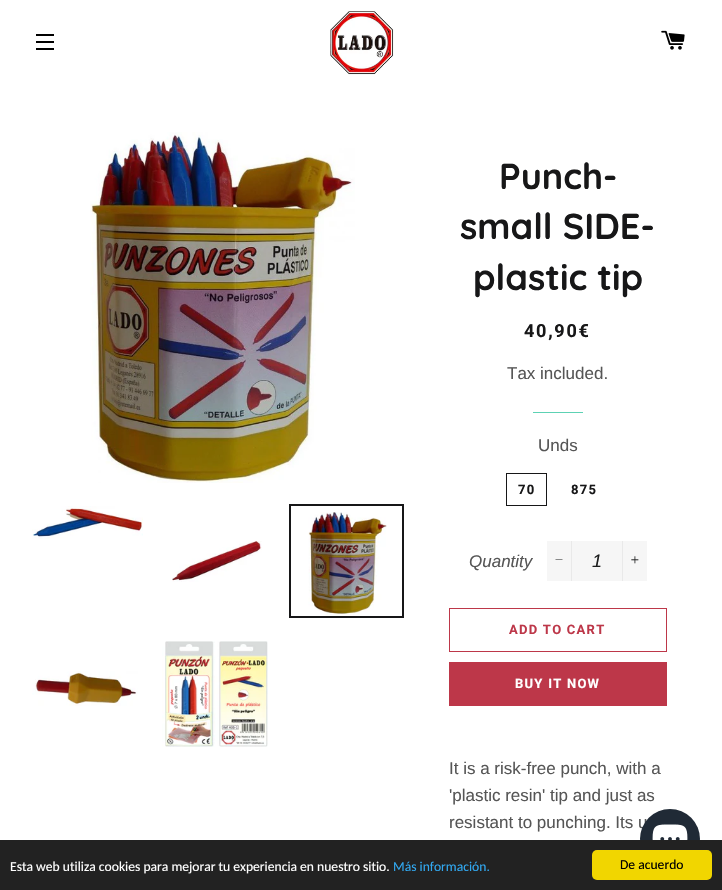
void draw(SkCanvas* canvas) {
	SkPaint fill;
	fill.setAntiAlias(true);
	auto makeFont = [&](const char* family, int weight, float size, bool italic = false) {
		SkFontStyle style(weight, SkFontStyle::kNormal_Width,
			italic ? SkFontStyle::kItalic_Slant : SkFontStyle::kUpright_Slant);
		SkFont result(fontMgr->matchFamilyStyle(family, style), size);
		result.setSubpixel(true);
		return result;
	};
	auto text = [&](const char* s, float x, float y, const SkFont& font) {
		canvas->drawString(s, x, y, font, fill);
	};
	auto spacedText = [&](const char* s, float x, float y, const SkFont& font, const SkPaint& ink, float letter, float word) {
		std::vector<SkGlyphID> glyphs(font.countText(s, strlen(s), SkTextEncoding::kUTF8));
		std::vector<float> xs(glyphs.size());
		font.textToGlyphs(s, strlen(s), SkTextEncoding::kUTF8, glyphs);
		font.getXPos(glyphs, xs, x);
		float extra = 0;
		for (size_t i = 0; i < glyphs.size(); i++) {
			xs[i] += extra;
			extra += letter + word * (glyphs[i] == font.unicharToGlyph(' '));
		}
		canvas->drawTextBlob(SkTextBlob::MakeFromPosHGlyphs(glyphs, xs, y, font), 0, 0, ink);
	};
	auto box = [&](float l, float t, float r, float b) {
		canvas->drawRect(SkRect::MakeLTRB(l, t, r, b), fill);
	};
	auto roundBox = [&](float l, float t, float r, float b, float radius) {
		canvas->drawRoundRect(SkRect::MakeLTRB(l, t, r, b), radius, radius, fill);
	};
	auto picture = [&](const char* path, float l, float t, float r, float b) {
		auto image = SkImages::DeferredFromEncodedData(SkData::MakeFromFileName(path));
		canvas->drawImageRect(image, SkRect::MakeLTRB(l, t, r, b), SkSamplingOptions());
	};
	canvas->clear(0xFFFFFFFF);
	fill.setColor(0xFF000000);
	box(36, 34, 54, 36);
	box(36, 41, 54, 43);
	box(36, 48, 54, 50);
	picture("image0.png", 330, 11, 394, 75);
	picture("image1.png", 661, 30, 685, 50);
	picture("image2.png", 90, 132, 355, 483);
	picture("image3.png", 32, 506, 143, 539);
	fill.setStyle(SkPaint::kStroke_Style);
	fill.setStrokeWidth(2);
	fill.setColor(0xFF171718);
	canvas->drawRect(SkRect::MakeLTRB(290, 505, 403, 617), fill);
	picture("image4.png", 308, 512, 387, 616);
	picture("image5.png", 172, 541, 262, 582);
	picture("image6.png", 32, 671, 138, 706);
	picture("image7.png", 162, 641, 268, 747);
	fill.setStyle(SkPaint::kFill_Style);
	fill.setColor(0xFF5DD2B4);
	box(533, 412, 583, 413);
	fill.setStyle(SkPaint::kStroke_Style);
	fill.setStrokeWidth(1);
	fill.setColor(0xFF171718);
	canvas->drawRect(SkRect::MakeLTRB(506.5f, 473.5f, 546.5f, 505.5f), fill);
	fill.setStyle(SkPaint::kFill_Style);
	fill.setColor(0xFFF6F6F6);
	box(547, 541, 647, 581);
	fill.setColor(0xFFE9E9E9);
	box(571, 541, 572, 581);
	fill.setColor(0xFF1C1D1D);
	canvas->drawPath(SkPathBuilder().moveTo(555.5f, 559.5f).lineTo(562.5f, 559.5f).lineTo(562.5f, 560).lineTo(555.5f, 560).close().detach(), fill);
	fill.setColor(0xFFE9E9E9);
	box(622, 541, 623, 581);
	picture("image8.png", 631, 556, 639, 564);
	fill.setStyle(SkPaint::kStroke_Style);
	fill.setColor(0xFFBD3749);
	canvas->drawRect(SkRect::MakeLTRB(449.5f, 608.5f, 666.5f, 651.5f), fill);
	fill.setStyle(SkPaint::kFill_Style);
	box(449, 662, 667, 706);
	auto font1 = makeFont("Quicksand", 700, 36);
	fill.setColor(0xFF171718);
	text("Punch-", 499, 189, font1);
	text("small SIDE-", 460, 239, font1);
	text("plastic tip", 473, 290, font1);
	auto font2 = makeFont("Roboto", 700, 18);
	spacedText("40,90€", 524, 337, font2, fill, 1.75f, 0);
	auto font3 = makeFont("Liberation Sans", 400, 17);
	fill.setColor(0xFF565656);
	text("Tax included.", 507, 379, font3);
	text("Unds", 538, 451, font3);
	auto font4 = makeFont("Roboto", 700, 13);
	fill.setColor(0xFF171718);
	spacedText("70", 518, 494, font4, fill, 1.25f, 0);
	spacedText("875", 571, 494, font4, fill, 1.25f, 0);
	auto font5 = makeFont("Liberation Sans", 400, 17, true);
	fill.setColor(0xFF565656);
	text("Quantity", 469, 567, font5);
	auto font6 = makeFont("Liberation Sans", 400, 18, true);
	fill.setColor(0xFF1C1D1D);
	text("1", 592, 567, font6);
	fill.setColor(0xFFBD3749);
	spacedText("ADD TO CART", 509, 634, font4, fill, 1.25f, 0);
	fill.setColor(0xFFFFFFFF);
	spacedText("BUY IT NOW", 515, 688, font4, fill, 1.25f, 0);
	fill.setColor(0xFF565656);
	text("It is a risk-free punch, with a", 449, 774, font3);
	text("'plastic resin' tip and just as", 449, 801, font3);
	text("resistant to punching. Its u", 449, 828, font3);
	fill.setColor(0xFF202A36);
	canvas->drawCircle(670, 839, 30, fill);
	picture("image9.png", 652, 824, 688, 840);
	fill.setColor(0xFF222222);
	box(0, 840, 722, 890);
	auto font7 = makeFont("Carlito", 400, 13.6f);
	fill.setColor(0xFFFFFFFF);
	text("Esta web utiliza cookies para mejorar tu experiencia en nuestro sitio.", 10, 871, font7);
	fill.setColor(0xFF31A8F0);
	text("Más información.", 393, 871, font7);
	fill.setColor(0xFFF1D600);
	roundBox(592, 850, 712, 880, 5);
	fill.setColor(0xFF000000);
	text("De acuerdo", 620, 869, font7);
}
